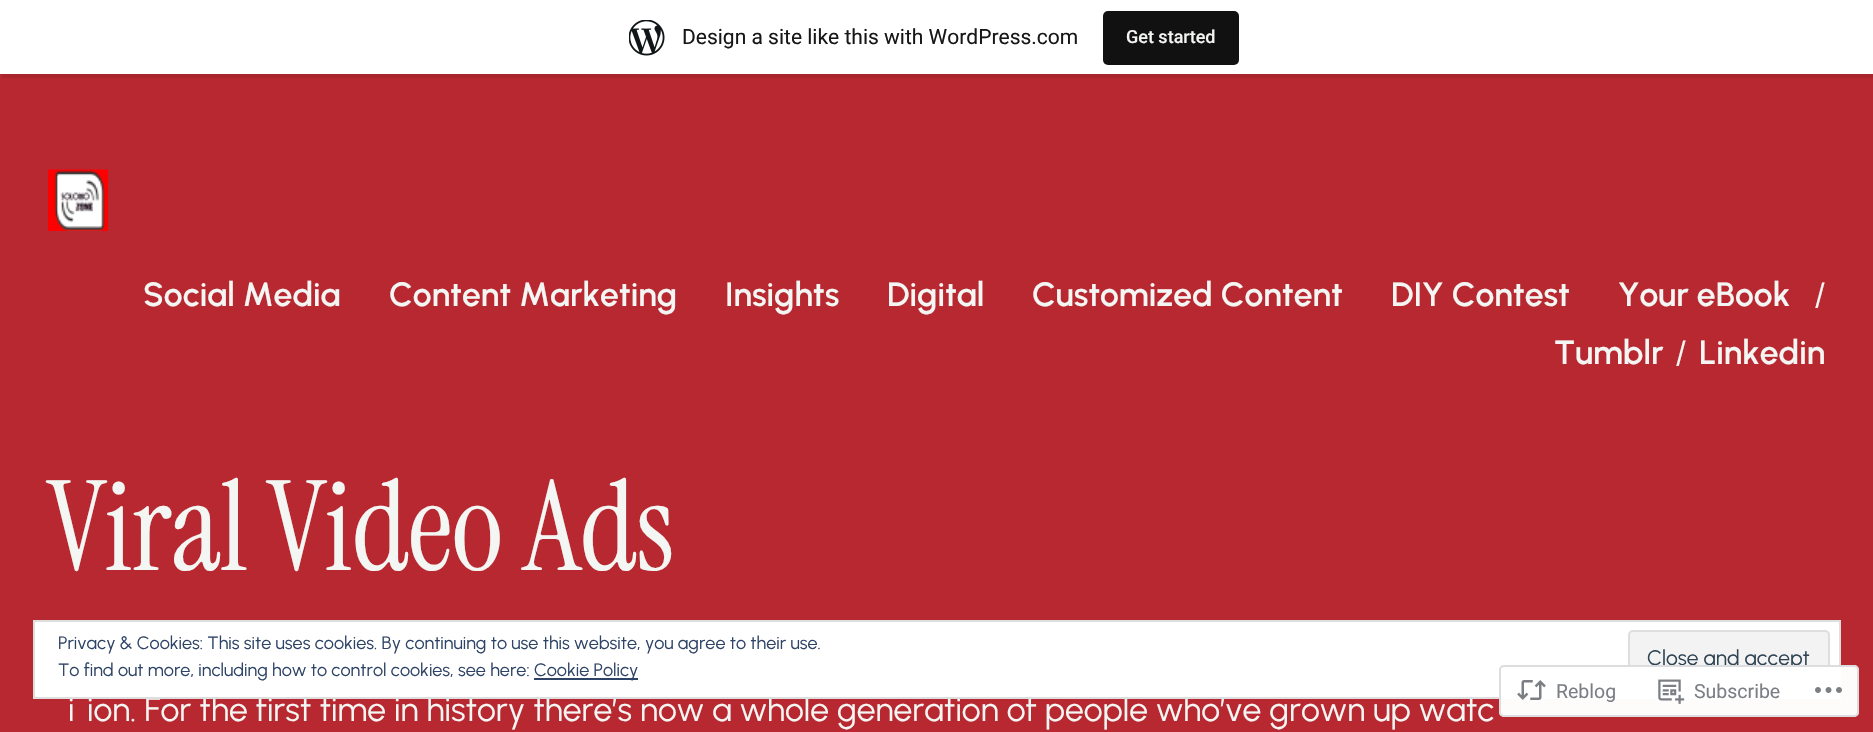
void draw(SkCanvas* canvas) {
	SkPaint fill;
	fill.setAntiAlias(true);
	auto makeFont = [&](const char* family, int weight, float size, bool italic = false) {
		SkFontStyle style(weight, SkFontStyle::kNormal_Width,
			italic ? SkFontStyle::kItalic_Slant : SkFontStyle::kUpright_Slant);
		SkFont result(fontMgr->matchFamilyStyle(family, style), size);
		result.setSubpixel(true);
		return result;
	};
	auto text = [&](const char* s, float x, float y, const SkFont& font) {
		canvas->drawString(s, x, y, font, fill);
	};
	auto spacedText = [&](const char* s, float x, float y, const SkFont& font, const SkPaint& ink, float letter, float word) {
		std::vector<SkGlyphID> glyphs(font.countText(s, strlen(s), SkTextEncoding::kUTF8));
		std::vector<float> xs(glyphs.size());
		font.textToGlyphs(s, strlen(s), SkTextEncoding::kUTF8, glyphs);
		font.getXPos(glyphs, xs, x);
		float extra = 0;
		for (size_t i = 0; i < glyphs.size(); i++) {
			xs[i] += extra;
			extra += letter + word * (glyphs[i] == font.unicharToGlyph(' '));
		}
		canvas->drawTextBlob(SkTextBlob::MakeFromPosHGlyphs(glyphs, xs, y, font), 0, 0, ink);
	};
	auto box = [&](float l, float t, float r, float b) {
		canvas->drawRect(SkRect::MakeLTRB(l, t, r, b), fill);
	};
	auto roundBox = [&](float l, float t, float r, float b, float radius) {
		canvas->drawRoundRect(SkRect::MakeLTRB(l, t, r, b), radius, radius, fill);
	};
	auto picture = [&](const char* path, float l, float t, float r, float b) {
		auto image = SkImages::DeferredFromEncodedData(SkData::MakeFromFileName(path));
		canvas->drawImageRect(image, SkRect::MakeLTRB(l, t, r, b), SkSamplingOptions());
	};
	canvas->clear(0xFFB72831);
	fill.setColor(0x14000000);
	canvas->drawPath(SkPathBuilder().moveTo(2, 74).lineTo(2, 78).lineTo(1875, 78).lineTo(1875, 5).lineTo(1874, 5).lineTo(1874, 74).close().detach(), fill);
	fill.setColor(0xFFFFFFFF);
	box(0, 0, 1873, 74);
	picture("image0.png", 629, 20, 665, 56);
	fill.setColor(0xFF111111);
	roundBox(1103, 11, 1239, 65, 5);
	picture("image1.png", 48, 169, 108, 231);
	auto font1 = makeFont("Roboto", 400, 21);
	fill.setColor(0xFF171717);
	text("Design a site like this with WordPress.com", 682, 44, font1);
	auto font2 = makeFont("Roboto", 500, 18);
	fill.setColor(0xFFF4F6F3);
	text("Get started", 1126, 43, font2);
	auto font3 = makeFont("Urbanist", 600, 33.6f);
	text("Social Media", 143, 306, font3);
	text("Content Marketing", 389, 306, font3);
	text("Insights", 725, 306, font3);
	text("Digital", 887, 306, font3);
	text("Customized Content", 1032, 306, font3);
	text("DIY Contest", 1391, 306, font3);
	text("Your eBook", 1618, 306, font3);
	auto font4 = makeFont("Urbanist", 400, 33.6f);
	text("/", 1814, 306, font4);
	text("Tumblr", 1554, 364, font3);
	text("/", 1675, 364, font4);
	text("Linkedin", 1699, 364, font3);
	auto font5 = makeFont("Instrument Serif", 400, 124.75f);
	spacedText("Viral Video Ads", 48, 570, font5, fill, -0.5f, 0);
	text("i", 68, 721, font4);
	text("ion. For the first time in history there’s now a whole generation of people who’ve grown up watc", 87, 721, font4);
	fill.setColor(0xFFFFFFFF);
	canvas->drawRect(SkRect::MakeLTRB(34, 621, 1840, 698), fill);
	fill.setStyle(SkPaint::kStroke_Style);
	fill.setStrokeWidth(2);
	fill.setColor(0xFFDEDEDE);
	canvas->drawRect(SkRect::MakeLTRB(34, 621, 1840, 698), fill);
	auto font6 = makeFont("Urbanist", 400, 18);
	fill.setStyle(SkPaint::kFill_Style);
	fill.setColor(0xFF2E4467);
	text("Privacy & Cookies: This site uses cookies. By continuing to use this website, you agree to their use.", 58, 649, font6);
	text("To find out more, including how to control cookies, see here:", 58, 676, font6);
	box(534, 678, 638, 680);
	text("Cookie Policy", 534, 676, font6);
	fill.setColor(0xFFF3F3F3);
	canvas->drawRoundRect(SkRect::MakeLTRB(1629, 631, 1829, 688), 4, 4, fill);
	fill.setStyle(SkPaint::kStroke_Style);
	fill.setColor(0xFFDEDEDE);
	canvas->drawRoundRect(SkRect::MakeLTRB(1629, 631, 1829, 688), 4, 4, fill);
	auto font7 = makeFont("Urbanist", 400, 21);
	fill.setStyle(SkPaint::kFill_Style);
	fill.setColor(0xFF2E4453);
	text("Close and accept", 1647, 665, font7);
	fill.setColor(0xFAFFFFFF);
	roundBox(1499, 665, 1859, 717, 5);
	fill.setStyle(SkPaint::kStroke_Style);
	fill.setColor(0xFADCDCDE);
	canvas->drawRoundRect(SkRect::MakeLTRB(1500, 666, 1858, 716), 4, 4, fill);
	picture("image2.png", 1517, 680, 1546, 700);
	auto font8 = makeFont("Roboto", 400, 19.5f);
	fill.setStyle(SkPaint::kFill_Style);
	fill.setColor(0xFF7B7F84);
	text("Reblog", 1556, 698, font8);
	picture("image3.png", 1658, 679, 1685, 704);
	text("Subscribe", 1694, 698, font8);
	picture("image4.png", 1815, 687, 1842, 693);
}
